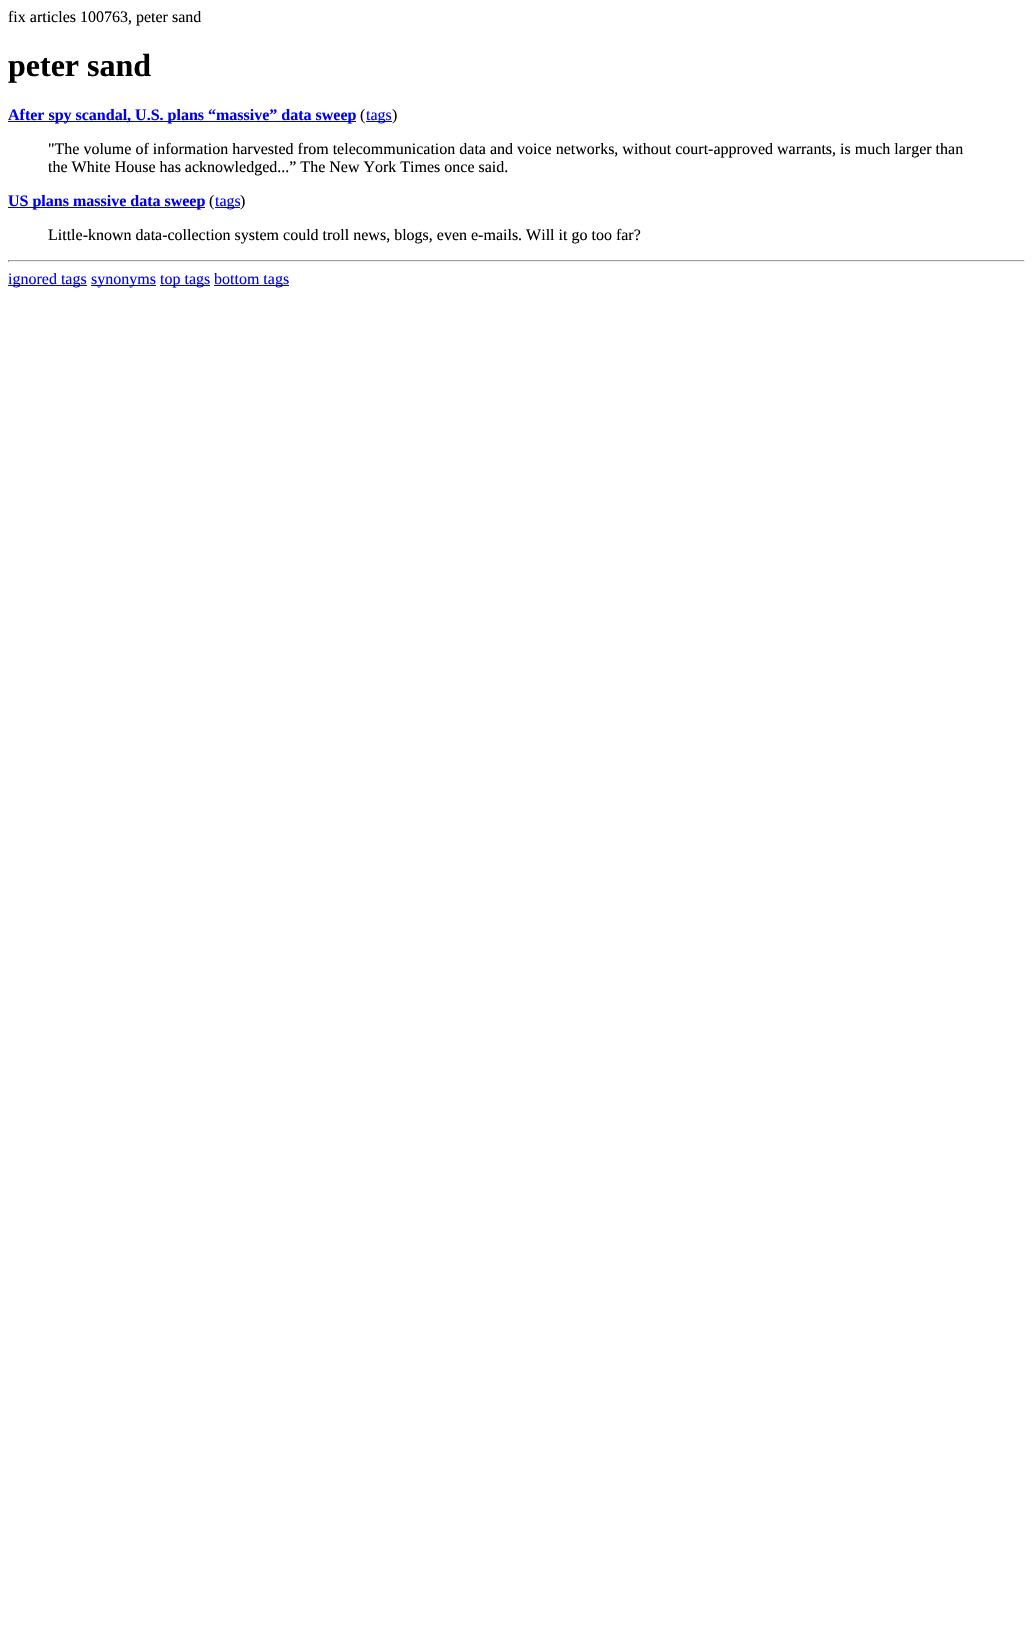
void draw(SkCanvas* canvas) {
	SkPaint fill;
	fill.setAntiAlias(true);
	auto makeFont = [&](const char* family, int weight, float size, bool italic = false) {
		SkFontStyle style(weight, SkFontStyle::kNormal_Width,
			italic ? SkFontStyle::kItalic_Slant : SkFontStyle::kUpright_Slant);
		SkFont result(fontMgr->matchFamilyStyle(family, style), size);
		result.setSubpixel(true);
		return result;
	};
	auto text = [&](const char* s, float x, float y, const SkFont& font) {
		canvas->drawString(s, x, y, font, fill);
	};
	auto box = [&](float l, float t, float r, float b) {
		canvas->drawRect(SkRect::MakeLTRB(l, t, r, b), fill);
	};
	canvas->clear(0xFFFFFFFF);
	fill.setColor(0xFF0000EE);
	box(8, 121, 356, 122);
	box(366, 121, 392, 122);
	box(8, 207, 205, 208);
	box(215, 207, 240, 208);
	fill.setColor(0xFF9F9F9F);
	box(8, 260, 1025, 261);
	fill.setColor(0xFFEEEEEE);
	box(1024, 260, 1025, 262);
	box(8, 261, 1025, 262);
	fill.setColor(0xFF9F9F9F);
	box(8, 260, 9, 262);
	fill.setColor(0xFF0000EE);
	box(8, 285, 87, 286);
	box(91, 285, 156, 286);
	box(160, 285, 210, 286);
	box(214, 285, 289, 286);
	auto font1 = makeFont("Liberation Serif", 400, 16);
	fill.setColor(0xFF000000);
	text("fix articles 100763, peter sand", 8, 22, font1);
	auto font2 = makeFont("Liberation Serif", 700, 32);
	text("peter sand", 8, 76, font2);
	auto font3 = makeFont("Liberation Serif", 700, 16);
	fill.setColor(0xFF0000EE);
	text("After spy scandal, U.S. plans “massive” data sweep", 8, 120, font3);
	fill.setColor(0xFF000000);
	text("(", 360, 120, font1);
	fill.setColor(0xFF0000EE);
	text("tags", 366, 120, font1);
	fill.setColor(0xFF000000);
	text(")", 392, 120, font1);
	text("\"The volume of information harvested from telecommunication data and voice networks, without court-approved warrants, is much larger than", 48, 154, font1);
	text("the White House has acknowledged...” The New York Times once said.", 48, 172, font1);
	fill.setColor(0xFF0000EE);
	text("US plans massive data sweep", 8, 206, font3);
	fill.setColor(0xFF000000);
	text("(", 209, 206, font1);
	fill.setColor(0xFF0000EE);
	text("tags", 215, 206, font1);
	fill.setColor(0xFF000000);
	text(")", 240, 206, font1);
	text("Little-known data-collection system could troll news, blogs, even e-mails. Will it go too far?", 48, 240, font1);
	fill.setColor(0xFF0000EE);
	text("ignored tags", 8, 284, font1);
	text("synonyms", 91, 284, font1);
	text("top tags", 160, 284, font1);
	text("bottom tags", 214, 284, font1);
}
